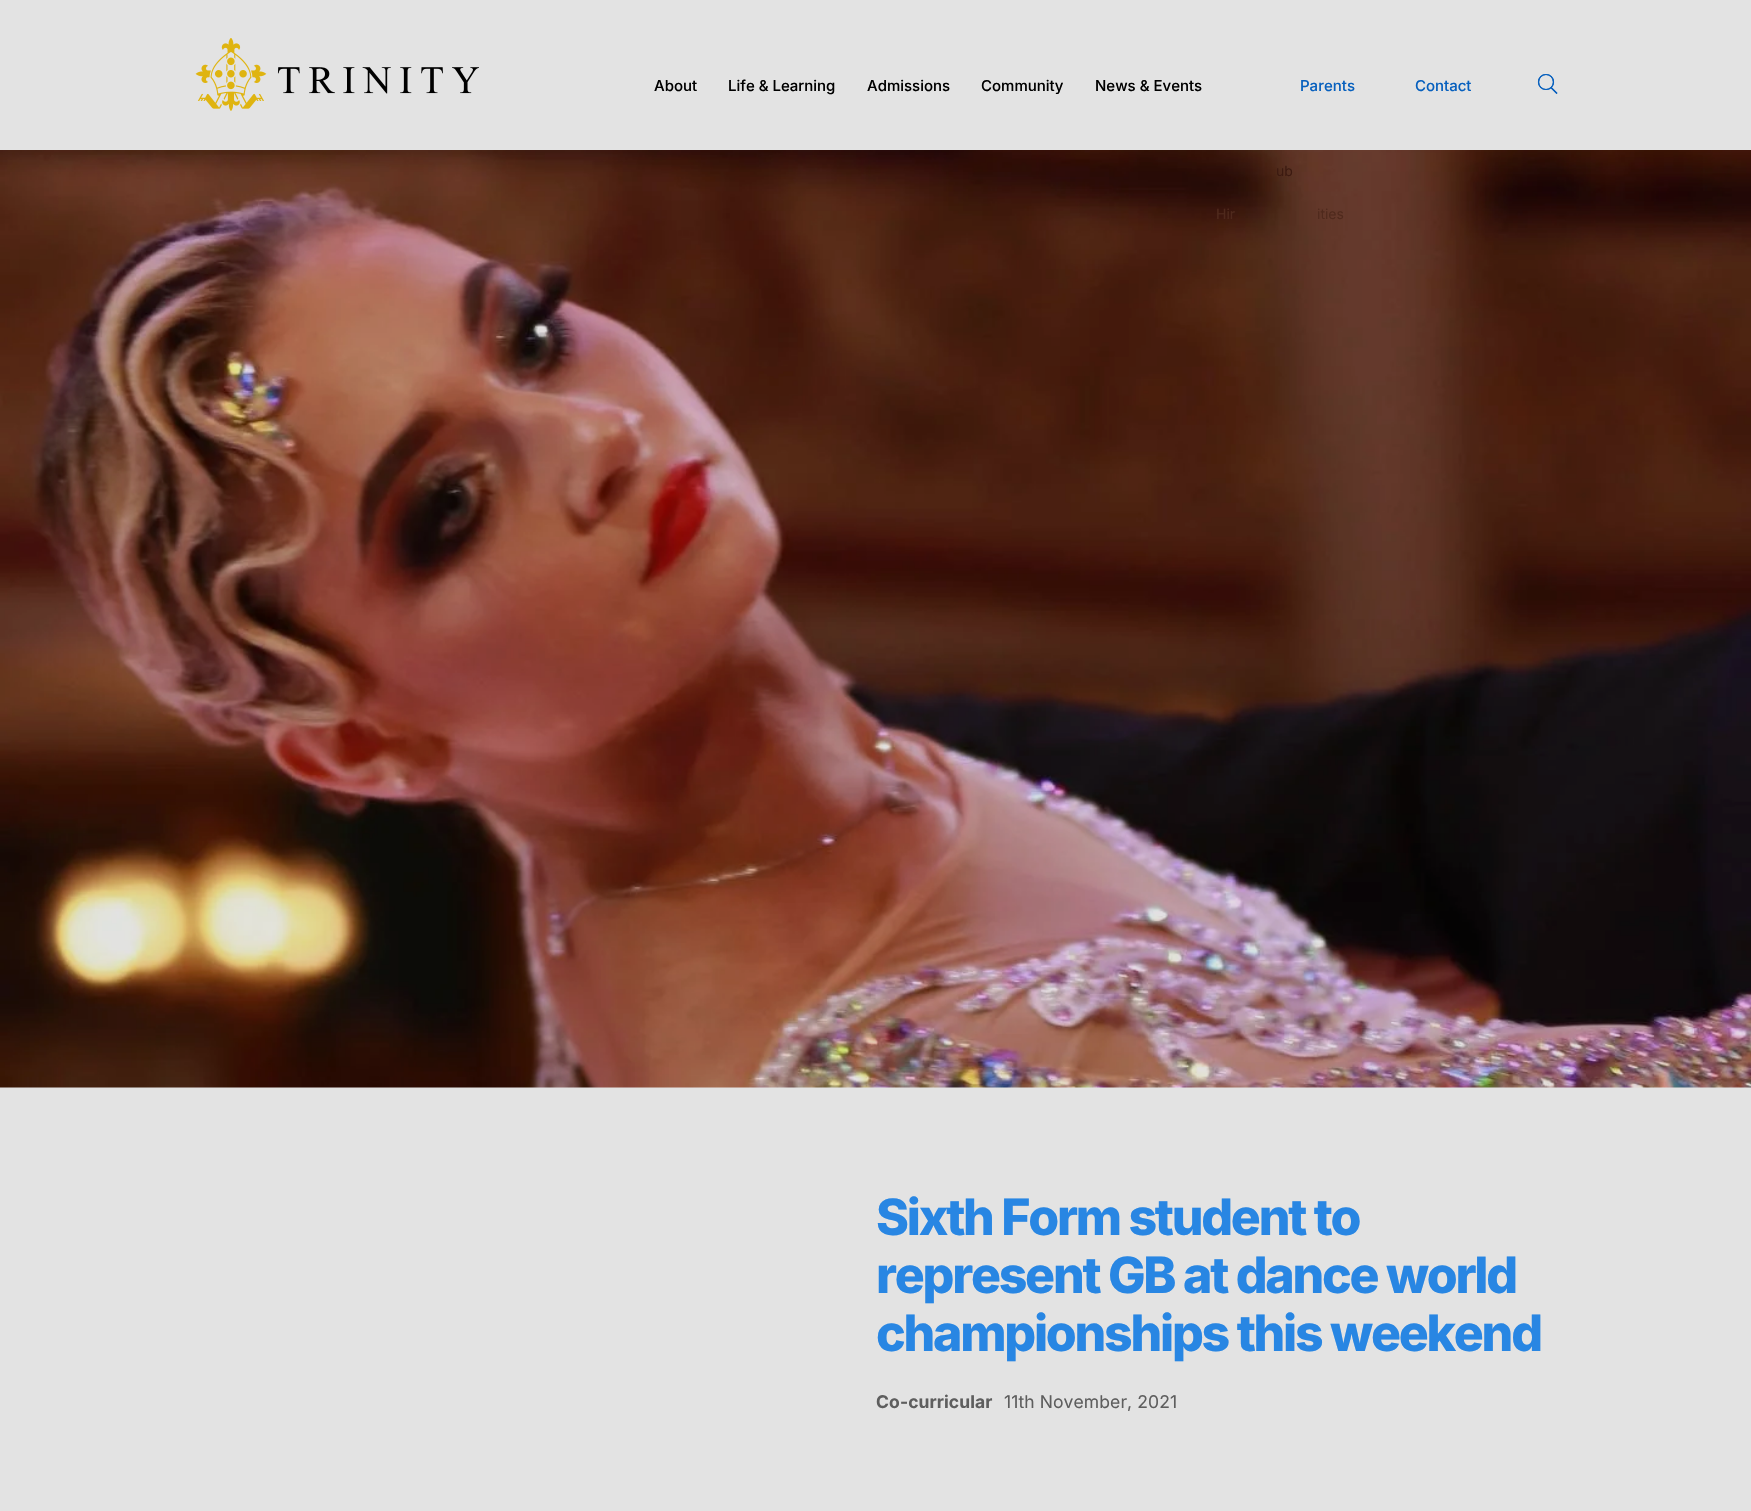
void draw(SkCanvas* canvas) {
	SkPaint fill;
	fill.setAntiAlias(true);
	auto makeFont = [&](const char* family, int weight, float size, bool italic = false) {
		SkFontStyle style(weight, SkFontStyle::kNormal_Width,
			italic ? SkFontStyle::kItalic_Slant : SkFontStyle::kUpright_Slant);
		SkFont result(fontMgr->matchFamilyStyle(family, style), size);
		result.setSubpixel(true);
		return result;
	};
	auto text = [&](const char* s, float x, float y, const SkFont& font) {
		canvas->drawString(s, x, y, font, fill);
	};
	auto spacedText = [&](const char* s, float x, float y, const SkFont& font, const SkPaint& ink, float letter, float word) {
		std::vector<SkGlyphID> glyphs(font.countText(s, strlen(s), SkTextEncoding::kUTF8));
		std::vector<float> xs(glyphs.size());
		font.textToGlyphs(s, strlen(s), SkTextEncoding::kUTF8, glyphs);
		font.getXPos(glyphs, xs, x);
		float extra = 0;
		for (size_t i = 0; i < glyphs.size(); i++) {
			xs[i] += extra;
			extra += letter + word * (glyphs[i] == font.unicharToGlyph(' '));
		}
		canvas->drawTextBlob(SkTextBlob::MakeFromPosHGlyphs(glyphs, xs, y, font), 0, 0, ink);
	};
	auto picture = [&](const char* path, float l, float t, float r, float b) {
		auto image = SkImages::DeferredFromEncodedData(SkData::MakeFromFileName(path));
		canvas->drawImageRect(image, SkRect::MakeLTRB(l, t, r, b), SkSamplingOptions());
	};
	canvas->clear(0xFFE3E3E3);
	picture("image0.png", 195, 38, 479, 111);
	fill.setStyle(SkPaint::kStroke_Style);
	fill.setStrokeWidth(1.2f);
	fill.setColor(0xFF0760BE);
	canvas->drawCircle(1546, 82, 7.5f, fill);
	canvas->drawPath(SkPathBuilder().moveTo(1551, 87.5f).lineTo(1557, 93.5f).detach(), fill);
	canvas->drawCircle(1546, 82, 7.5f, fill);
	canvas->drawPath(SkPathBuilder().moveTo(1551, 87.5f).lineTo(1557, 93.5f).detach(), fill);
	picture("image1.png", 0, 150, 1751, 1088);
	auto font1 = makeFont("Inter", 500, 15);
	fill.setStyle(SkPaint::kFill_Style);
	fill.setColor(0xFF000000);
	text("About", 654, 91, font1);
	text("Life & Learning", 728, 91, font1);
	text("Admissions", 867, 91, font1);
	text("Community", 981, 91, font1);
	auto font2 = makeFont("Inter", 400, 14);
	fill.setColor(0xFF3C1A10);
	text("ub", 1276, 176, font2);
	fill.setColor(0xFF4F291C);
	text("Hir", 1216, 219, font2);
	text("ities", 1317, 219, font2);
	fill.setColor(0xFF000000);
	text("News & Events", 1095, 91, font1);
	fill.setColor(0xFF0760BE);
	text("Parents", 1300, 91, font1);
	text("Contact", 1415, 91, font1);
	auto font3 = makeFont("Inter", 800, 50);
	fill.setColor(0xFF2886E3);
	spacedText("Sixth Form student to", 876, 1235, font3, fill, -2.25f, 0);
	spacedText("represent GB at dance world", 876, 1293, font3, fill, -2.25f, 0);
	spacedText("championships this weekend", 876, 1351, font3, fill, -2.25f, 0);
	auto font4 = makeFont("Inter", 700, 17.5f);
	fill.setColor(0xFF5E5E5E);
	spacedText("Co-curricular", 876, 1408, font4, fill, 0.1f, 0);
	auto font5 = makeFont("Inter", 400, 17.5f);
	spacedText("11th November, 2021", 1004, 1408, font5, fill, 0.1f, 0);
}
